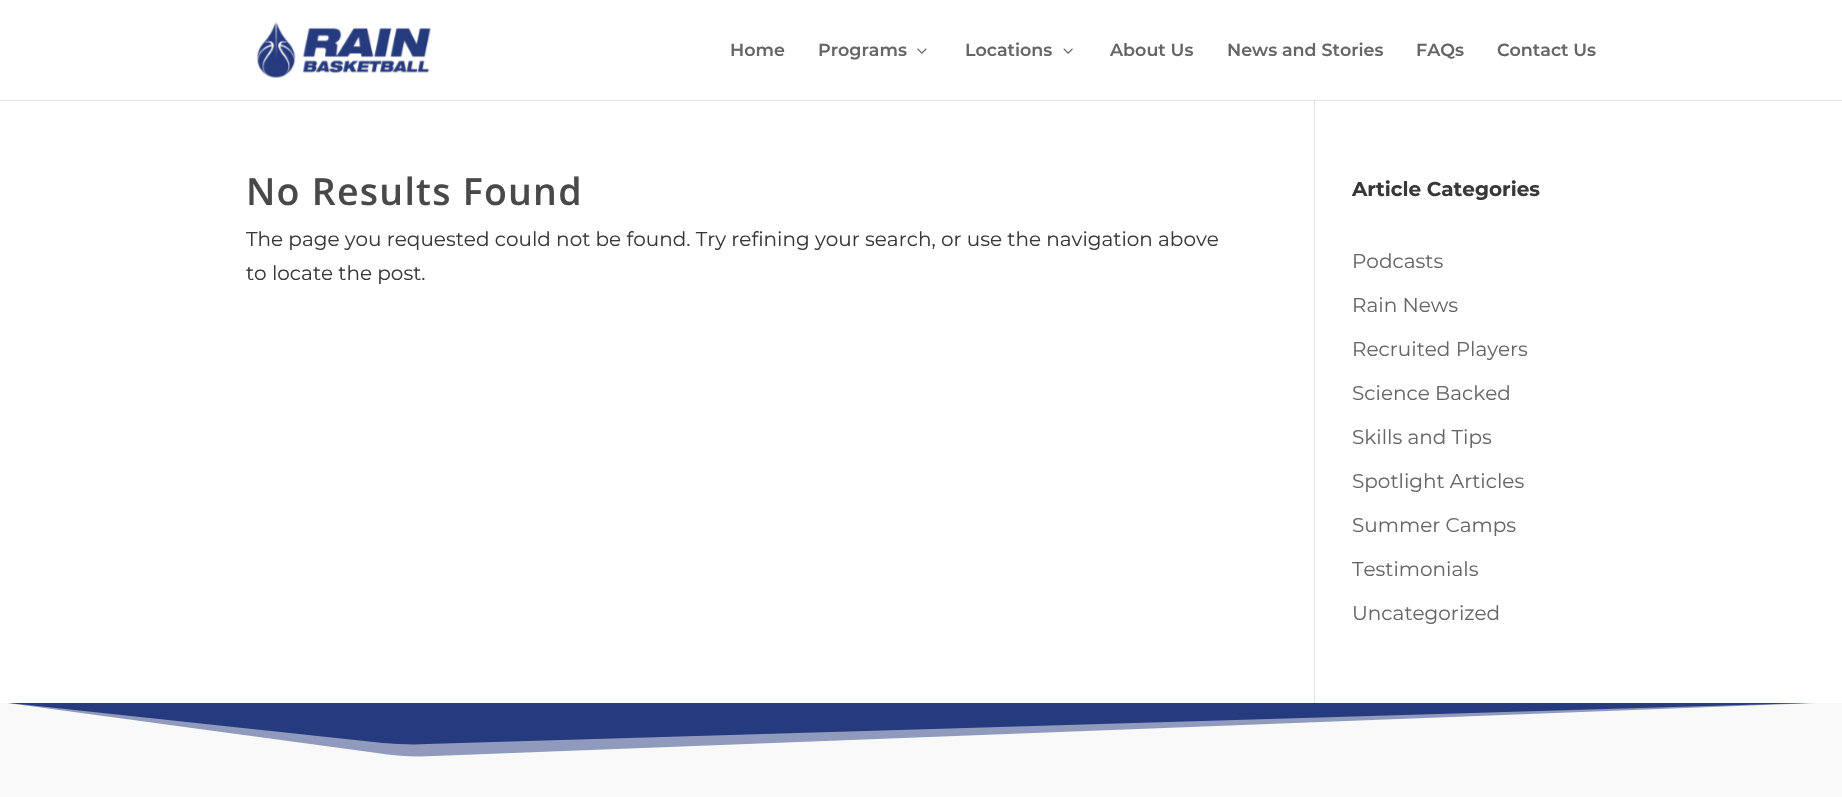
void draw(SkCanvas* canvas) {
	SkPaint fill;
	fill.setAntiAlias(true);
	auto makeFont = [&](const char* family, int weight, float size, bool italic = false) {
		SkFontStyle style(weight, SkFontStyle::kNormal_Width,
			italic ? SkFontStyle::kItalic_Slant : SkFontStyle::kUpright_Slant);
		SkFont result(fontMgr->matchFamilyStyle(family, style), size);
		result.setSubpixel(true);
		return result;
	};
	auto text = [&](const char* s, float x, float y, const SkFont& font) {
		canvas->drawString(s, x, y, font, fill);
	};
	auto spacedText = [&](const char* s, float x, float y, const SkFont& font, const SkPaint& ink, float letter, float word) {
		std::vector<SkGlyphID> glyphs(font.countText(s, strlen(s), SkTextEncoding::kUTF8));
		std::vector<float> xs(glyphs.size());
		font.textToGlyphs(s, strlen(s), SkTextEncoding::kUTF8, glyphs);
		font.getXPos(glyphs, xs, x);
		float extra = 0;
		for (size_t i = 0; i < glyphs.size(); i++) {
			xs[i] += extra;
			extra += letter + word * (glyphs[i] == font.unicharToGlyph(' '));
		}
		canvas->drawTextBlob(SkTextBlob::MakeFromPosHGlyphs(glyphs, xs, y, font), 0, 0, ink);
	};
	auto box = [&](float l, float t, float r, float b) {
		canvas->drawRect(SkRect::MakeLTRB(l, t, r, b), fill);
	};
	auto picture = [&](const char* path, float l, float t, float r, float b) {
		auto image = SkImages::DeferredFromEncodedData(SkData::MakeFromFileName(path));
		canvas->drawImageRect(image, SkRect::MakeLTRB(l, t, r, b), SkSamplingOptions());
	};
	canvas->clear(0xFFFFFFFF);
	fill.setColor(0xFFE2E2E2);
	box(1314, 100, 1315, 703);
	fill.setColor(0x1A000000);
	canvas->drawPath(SkPathBuilder().moveTo(0, 100).lineTo(0, 101).lineTo(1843, 101).lineTo(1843, 1).lineTo(1842, 1).lineTo(1842, 100).close().detach(), fill);
	picture("image0.png", 256, 22, 432, 78);
	picture("image1.png", 917, 48, 927, 54);
	picture("image2.png", 1063, 48, 1073, 54);
	fill.setColor(0xFFF9F9F9);
	box(0, 703, 1842, 797);
	canvas->save();
	canvas->clipRect(SkRect::MakeLTRB(0, 703, 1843, 764));
	fill.setColor(0xFF909ABC);
	canvas->drawPath(SkPathBuilder().moveTo(434, 756).lineTo(1842, 702).lineTo(0, 702).lineTo(377, 753).cubicTo(395, 756, 414, 757, 434, 756).close().detach(), fill);
	fill.setColor(0xFF263A7E);
	canvas->drawPath(SkPathBuilder().moveTo(427, 744).lineTo(1842, 702).lineTo(0, 702).lineTo(383, 743).cubicTo(397, 744, 412, 745, 427, 744).close().detach(), fill);
	canvas->restore();
	auto font1 = makeFont("Montserrat", 600, 17.5f);
	fill.setColor(0xFF666666);
	text("Home", 730, 56, font1);
	text("Programs", 818, 56, font1);
	text("Locations", 965, 56, font1);
	text("About Us", 1110, 56, font1);
	text("News and Stories", 1227, 56, font1);
	text("FAQs", 1416, 56, font1);
	text("Contact Us", 1497, 56, font1);
	auto font2 = makeFont("Open Sans", 600, 37.5f);
	fill.setColor(0xFF494949);
	spacedText("No Results Found", 246, 205, font2, fill, 1.25f, 0);
	auto font3 = makeFont("Montserrat", 400, 20);
	fill.setColor(0xFF383838);
	text("The page you requested could not be found. Try refining your search, or use the navigation above", 246, 246, font3);
	text("to locate the post.", 246, 280, font3);
	auto font4 = makeFont("Montserrat", 700, 20);
	text("Article Categories", 1352, 196, font4);
	fill.setColor(0xFF666666);
	text("Podcasts", 1352, 268, font3);
	text("Rain News", 1352, 312, font3);
	text("Recruited Players", 1352, 356, font3);
	text("Science Backed", 1352, 400, font3);
	text("Skills and Tips", 1352, 444, font3);
	text("Spotlight Articles", 1352, 488, font3);
	text("Summer Camps", 1352, 532, font3);
	text("Testimonials", 1352, 576, font3);
	text("Uncategorized", 1352, 620, font3);
}
